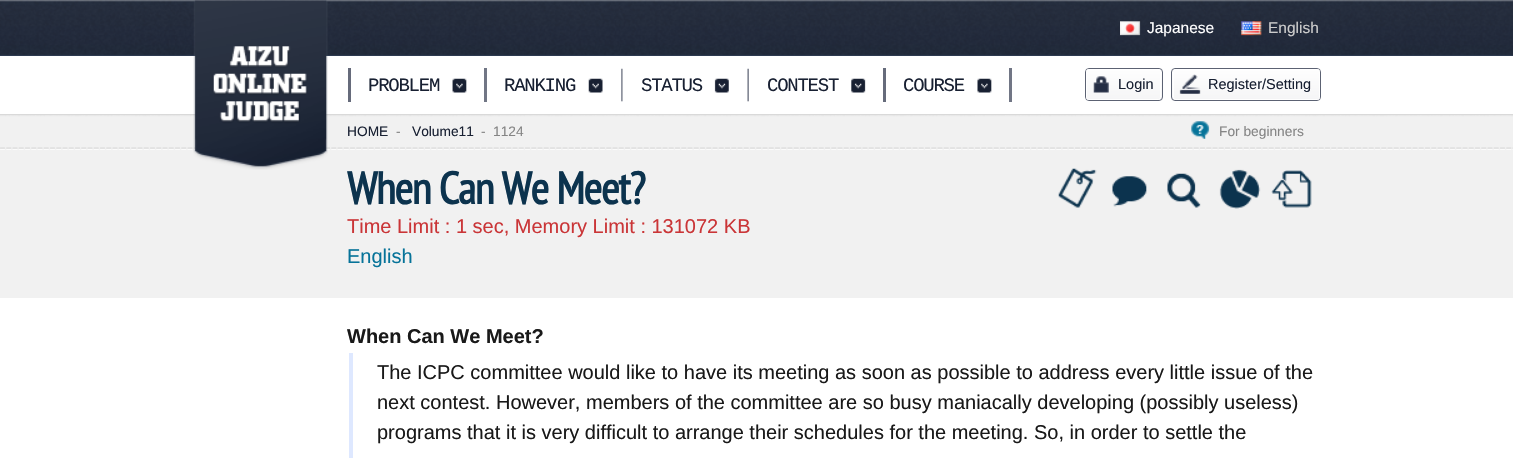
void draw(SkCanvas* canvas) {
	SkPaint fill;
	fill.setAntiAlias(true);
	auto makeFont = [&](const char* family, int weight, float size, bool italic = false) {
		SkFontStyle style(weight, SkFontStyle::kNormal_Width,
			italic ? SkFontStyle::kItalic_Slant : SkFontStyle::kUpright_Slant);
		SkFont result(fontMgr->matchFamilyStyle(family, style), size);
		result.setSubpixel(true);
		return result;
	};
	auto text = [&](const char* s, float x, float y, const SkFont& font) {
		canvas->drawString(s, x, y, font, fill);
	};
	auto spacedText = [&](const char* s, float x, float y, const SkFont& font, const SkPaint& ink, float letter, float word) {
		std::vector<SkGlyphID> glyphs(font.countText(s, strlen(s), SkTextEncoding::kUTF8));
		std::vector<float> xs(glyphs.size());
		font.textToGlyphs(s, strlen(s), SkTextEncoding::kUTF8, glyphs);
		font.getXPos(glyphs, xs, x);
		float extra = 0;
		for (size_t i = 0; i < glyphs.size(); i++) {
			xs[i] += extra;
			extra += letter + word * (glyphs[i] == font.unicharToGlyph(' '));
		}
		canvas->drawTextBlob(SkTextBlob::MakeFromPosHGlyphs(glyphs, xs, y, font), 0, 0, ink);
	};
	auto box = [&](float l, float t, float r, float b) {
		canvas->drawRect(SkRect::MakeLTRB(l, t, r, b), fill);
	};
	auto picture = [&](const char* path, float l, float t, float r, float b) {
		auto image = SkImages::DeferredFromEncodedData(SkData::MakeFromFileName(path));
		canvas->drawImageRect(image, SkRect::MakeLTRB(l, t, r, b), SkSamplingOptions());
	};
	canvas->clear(0xFFFFFFFF);
	picture("image1.png", 0, 0, 1513, 150);
	fill.setColor(0xFFFFFFFF);
	box(0, 56, 1513, 114);
	fill.setColor(0xFFF1F1F1);
	box(0, 150, 1513, 298);
	picture("image0.png", 193, 0, 328, 170);
	picture("image2.png", 1120, 21, 1141, 36);
	picture("image3.png", 1241, 21, 1262, 36);
	picture("image4.png", 1191, 121, 1210, 139);
	fill.setColor(0xFF666B7B);
	box(348, 68, 351, 102);
	picture("image5.png", 452, 78, 467, 93);
	fill.setColor(0xFF717685);
	box(484, 68, 487, 102);
	picture("image6.png", 588, 78, 603, 93);
	picture("image7.png", 621, 68, 623, 102);
	picture("image8.png", 714, 78, 729, 93);
	picture("image9.png", 747, 68, 749, 102);
	picture("image10.png", 851, 78, 866, 93);
	fill.setColor(0xFF666B7B);
	box(883, 68, 886, 102);
	picture("image11.png", 977, 78, 992, 93);
	fill.setColor(0xFF717685);
	box(1009, 68, 1012, 102);
	canvas->save();
	canvas->clipPath(SkPathBuilder().moveTo(1089, 68).lineTo(1159, 68).cubicTo(1161, 68, 1163, 70, 1163, 72).lineTo(1163, 97).cubicTo(1163, 99, 1161, 101, 1159, 101).lineTo(1089, 101).cubicTo(1087, 101, 1085, 99, 1085, 97).lineTo(1085, 72).cubicTo(1085, 70, 1087, 68, 1089, 68).close().detach(), true);
	{
		const SkColor colors[] = {0xFFFEFEFE, 0xFFF5F5F6};
		const float stops[] = {0, 1};
		const SkPoint ends[] = {{1086, 69}, {1086, 100}};
		fill.setShader(SkGradientShader::MakeLinear(ends, colors, stops, 2, SkTileMode::kClamp));
		fill.setAlpha(255);
	}
	box(1085, 69, 1163, 100);
	canvas->restore();
	fill.setStyle(SkPaint::kStroke_Style);
	fill.setStrokeWidth(1);
	fill.setShader(nullptr);
	fill.setColor(0xFF5C6273);
	canvas->drawRoundRect(SkRect::MakeLTRB(1085.5f, 68.5f, 1162.5f, 100.5f), 3.5f, 3.5f, fill);
	picture("image12.png", 1093, 76, 1109, 93);
	fill.setColor(0xFFFFFFFF);
	canvas->drawRoundRect(SkRect::MakeLTRB(1086.5f, 69.5f, 1160.5f, 99.5f), 2, 2, fill);
	canvas->save();
	canvas->clipPath(SkPathBuilder().moveTo(1175, 68).lineTo(1317, 68).cubicTo(1319, 68, 1321, 70, 1321, 72).lineTo(1321, 97).cubicTo(1321, 99, 1319, 101, 1317, 101).lineTo(1175, 101).cubicTo(1173, 101, 1171, 99, 1171, 97).lineTo(1171, 72).cubicTo(1171, 70, 1173, 68, 1175, 68).close().detach(), true);
	fill.setStyle(SkPaint::kFill_Style);
	{
		const SkColor colors[] = {0xFFFEFEFE, 0xFFF5F5F6};
		const float stops[] = {0, 1};
		const SkPoint ends[] = {{1173, 69}, {1173, 100}};
		fill.setShader(SkGradientShader::MakeLinear(ends, colors, stops, 2, SkTileMode::kClamp));
		fill.setAlpha(255);
	}
	box(1171, 69, 1321, 100);
	canvas->restore();
	fill.setStyle(SkPaint::kStroke_Style);
	fill.setShader(nullptr);
	fill.setColor(0xFF5C6273);
	canvas->drawRoundRect(SkRect::MakeLTRB(1171.5f, 68.5f, 1320.5f, 100.5f), 3.5f, 3.5f, fill);
	picture("image13.png", 1179, 74, 1201, 94);
	fill.setColor(0xFFFFFFFF);
	canvas->drawRoundRect(SkRect::MakeLTRB(1173.5f, 69.5f, 1319.5f, 99.5f), 2, 2, fill);
	picture("image14.png", 1058, 168, 1097, 208);
	picture("image15.png", 1112, 176, 1147, 207);
	picture("image16.png", 1167, 173, 1201, 208);
	picture("image17.png", 1219, 169, 1261, 209);
	picture("image18.png", 1271, 170, 1312, 208);
	fill.setStyle(SkPaint::kFill_Style);
	fill.setColor(0xFFDEE8FF);
	box(349, 353, 353, 458);
	auto font1 = makeFont("Liberation Sans", 400, 15.5f);
	fill.setColor(0xFFFFFFFF);
	text("Japanese", 1147, 33, font1);
	fill.setColor(0xFFCCCCCC);
	text("English", 1268, 33, font1);
	auto font2 = makeFont("Liberation Sans", 400, 13.75f);
	fill.setColor(0xFF182032);
	text("HOME", 347, 136, font2);
	fill.setColor(0xFF858585);
	text("-", 396, 136, font2);
	fill.setColor(0xFF182032);
	text("Volume11", 412, 136, font2);
	fill.setColor(0xFF858585);
	text("-", 481, 136, font2);
	text("1124", 493, 136, font2);
	text("For beginners", 1219, 136, font2);
	auto font3 = makeFont("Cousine", 400, 19);
	fill.setColor(0xFF182032);
	spacedText("PROBLEM", 368, 91, font3, fill, -1.25f, 0);
	spacedText("RANKING", 504, 91, font3, fill, -1.25f, 0);
	spacedText("STATUS", 641, 91, font3, fill, -1.25f, 0);
	spacedText("CONTEST", 767, 91, font3, fill, -1.25f, 0);
	spacedText("COURSE", 903, 91, font3, fill, -1.25f, 0);
	auto font4 = makeFont("Liberation Sans", 400, 14.5f);
	text("Login", 1118, 89, font4);
	text("Register/Setting", 1208, 89, font4);
	auto font5 = makeFont("PT Sans Narrow", 700, 45);
	fill.setColor(0xFF0C334E);
	spacedText("When Can We Meet?", 347, 204, font5, fill, -1.25f, 0);
	auto font6 = makeFont("Liberation Sans", 400, 20);
	fill.setColor(0xFFCA3537);
	text("Time Limit : 1 sec, Memory Limit : 131072 KB", 347, 233, font6);
	fill.setColor(0xFF067399);
	text("English", 347, 263, font6);
	auto font7 = makeFont("Liberation Sans", 700, 20);
	fill.setColor(0xFF191919);
	text("When Can We Meet?", 347, 343, font7);
	text("The ICPC committee would like to have its meeting as soon as possible to address every little issue of the", 377, 379, font6);
	text("next contest. However, members of the committee are so busy maniacally developing (possibly useless)", 377, 409, font6);
	text("programs that it is very difficult to arrange their schedules for the meeting. So, in order to settle the", 377, 439, font6);
}
